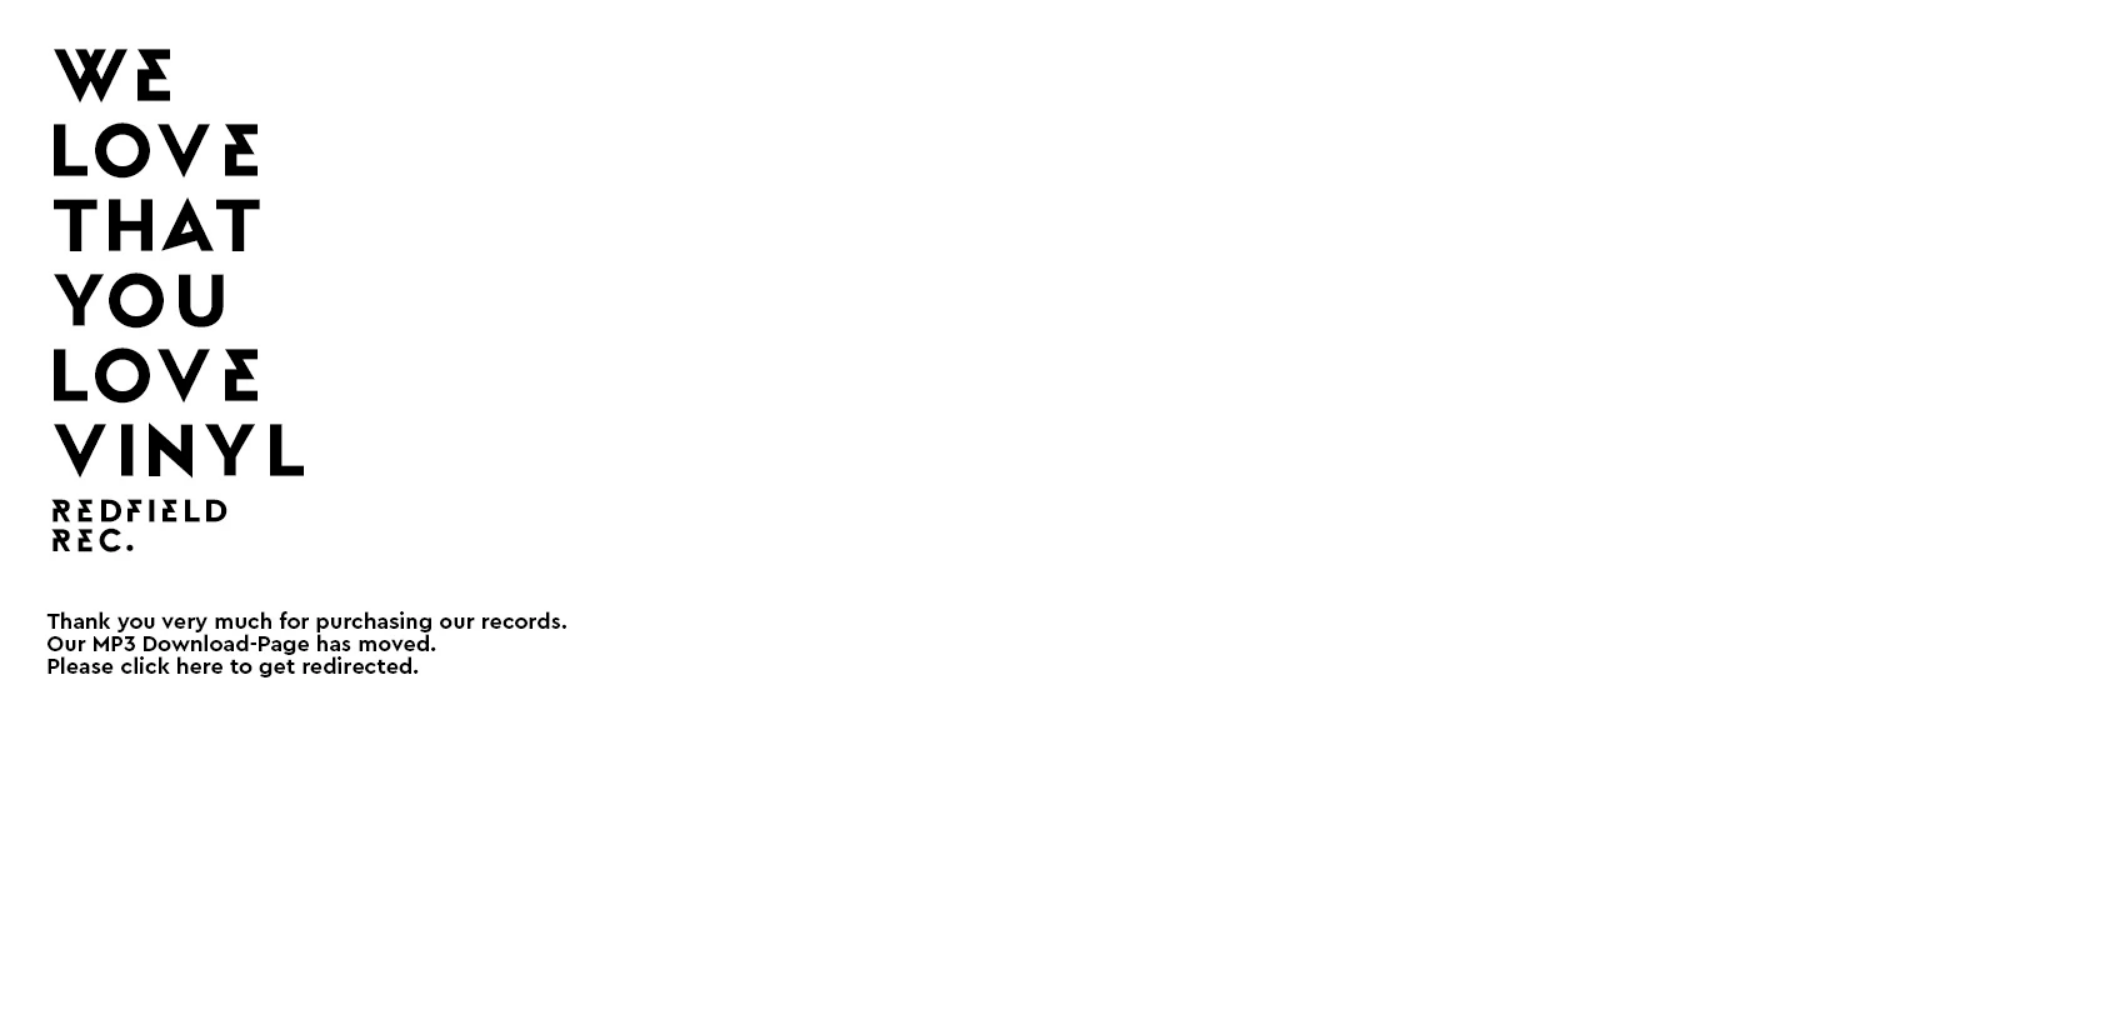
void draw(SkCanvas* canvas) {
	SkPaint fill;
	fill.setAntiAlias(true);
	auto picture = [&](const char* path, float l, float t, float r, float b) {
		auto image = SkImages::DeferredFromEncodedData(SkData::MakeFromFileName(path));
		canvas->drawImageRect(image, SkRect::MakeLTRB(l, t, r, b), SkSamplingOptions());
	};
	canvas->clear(0xFFFFFFFF);
	picture("image0.png", 45, 45, 570, 678);
}
